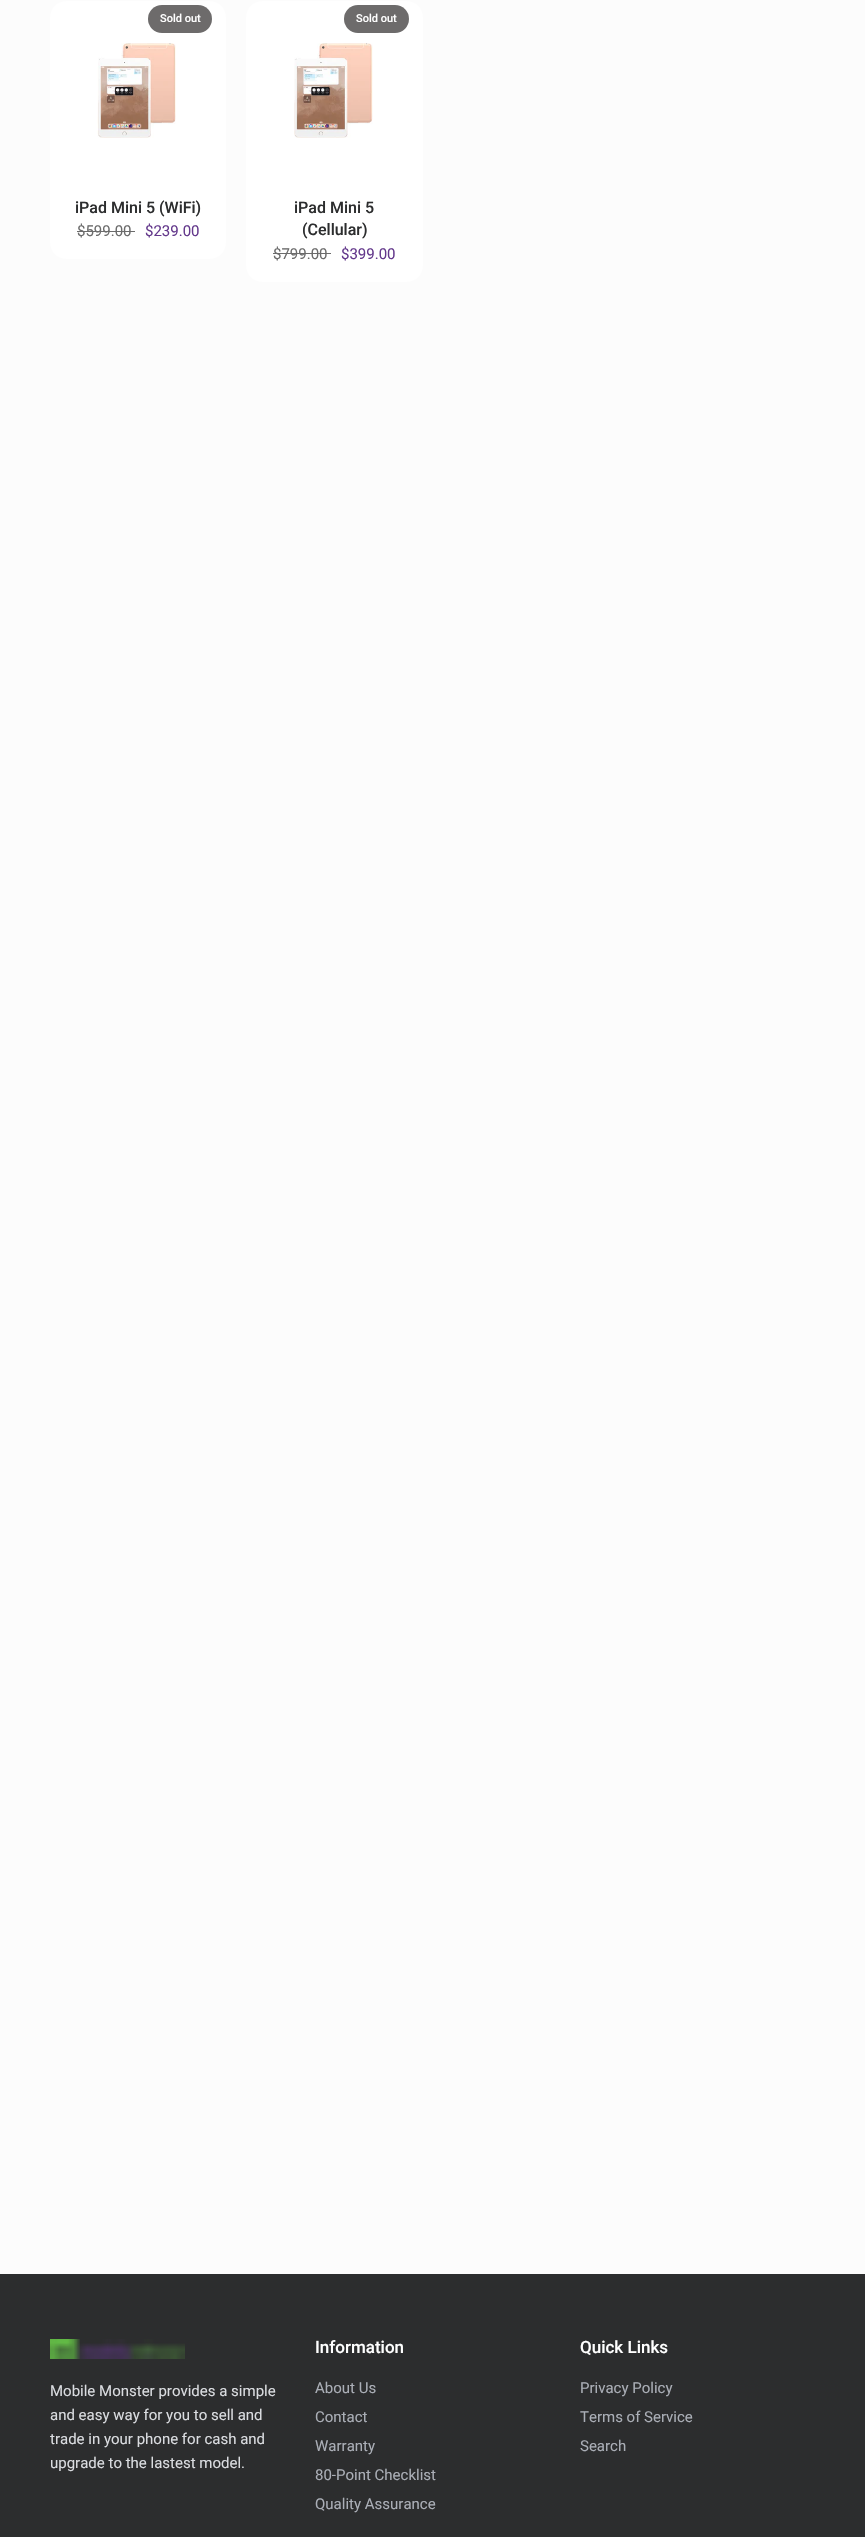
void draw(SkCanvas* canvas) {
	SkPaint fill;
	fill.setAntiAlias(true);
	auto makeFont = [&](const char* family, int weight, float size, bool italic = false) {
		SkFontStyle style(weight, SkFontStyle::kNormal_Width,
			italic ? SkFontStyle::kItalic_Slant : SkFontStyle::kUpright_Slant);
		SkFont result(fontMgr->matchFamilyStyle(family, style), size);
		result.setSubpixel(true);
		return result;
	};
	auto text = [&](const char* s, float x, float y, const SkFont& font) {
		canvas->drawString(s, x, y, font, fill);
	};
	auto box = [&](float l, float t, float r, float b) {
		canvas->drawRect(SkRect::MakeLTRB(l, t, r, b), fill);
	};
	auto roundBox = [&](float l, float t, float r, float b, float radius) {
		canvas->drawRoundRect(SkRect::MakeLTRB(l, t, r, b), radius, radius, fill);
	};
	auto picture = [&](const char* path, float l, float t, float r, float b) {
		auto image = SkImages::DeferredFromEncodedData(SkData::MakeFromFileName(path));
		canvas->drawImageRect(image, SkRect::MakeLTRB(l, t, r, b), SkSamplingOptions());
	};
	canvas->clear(0xFF2C2D2E);
	fill.setColor(0xFFFCFCFC);
	box(0, 0, 865, 2274);
	fill.setColor(0xFFFFFFFF);
	roundBox(50, 1, 226, 259, 16);
	fill.setColor(0xFF6D6B6B);
	roundBox(148, 5, 212, 33, 14);
	picture("image0.png", 97, 43, 176, 138);
	fill.setColor(0xFF6B6B6B);
	box(77, 231, 135, 232);
	fill.setColor(0xFFFFFFFF);
	roundBox(246, 1, 423, 282, 16);
	fill.setColor(0xFF6D6B6B);
	roundBox(344, 5, 409, 33, 14);
	picture("image1.png", 294, 43, 373, 138);
	fill.setColor(0xFF6B6B6B);
	box(273, 253, 331, 254);
	picture("image2.png", 50, 2339, 185, 2359);
	auto font1 = makeFont("Roboto", 500, 11);
	fill.setColor(0xFFFFFFFF);
	text("Sold out", 160, 22, font1);
	auto font2 = makeFont("Roboto", 500, 16);
	fill.setColor(0xFF2C2D2E);
	text("iPad Mini 5 (WiFi)", 75, 213, font2);
	auto font3 = makeFont("Roboto", 400, 15);
	fill.setColor(0xFF6B6B6B);
	text("$599.00", 77, 236, font3);
	fill.setColor(0xFF64398C);
	text("$239.00", 145, 236, font3);
	fill.setColor(0xFFFFFFFF);
	text("Sold out", 356, 22, font1);
	fill.setColor(0xFF2C2D2E);
	text("iPad Mini 5", 294, 213, font2);
	text("(Cellular)", 302, 235, font2);
	fill.setColor(0xFF6B6B6B);
	text("$799.00", 273, 259, font3);
	fill.setColor(0xFF64398C);
	text("$399.00", 341, 259, font3);
	fill.setColor(0xFFDADCE0);
	text("Mobile Monster provides a simple", 50, 2396, font3);
	text("and easy way for you to sell and", 50, 2420, font3);
	text("trade in your phone for cash and", 50, 2444, font3);
	text("upgrade to the lastest model.", 50, 2468, font3);
	auto font4 = makeFont("Roboto", 500, 17);
	fill.setColor(0xFFFFFFFF);
	text("Information", 315, 2353, font4);
	fill.setColor(0xFFAAAEB6);
	text("About Us", 315, 2393, font3);
	text("Contact", 315, 2422, font3);
	text("Warranty", 315, 2451, font3);
	text("80-Point Checklist", 315, 2480, font3);
	text("Quality Assurance", 315, 2509, font3);
	fill.setColor(0xFFFFFFFF);
	text("Quick Links", 580, 2353, font4);
	fill.setColor(0xFFAAAEB6);
	text("Privacy Policy", 580, 2393, font3);
	text("Terms of Service", 580, 2422, font3);
	text("Search", 580, 2451, font3);
}
